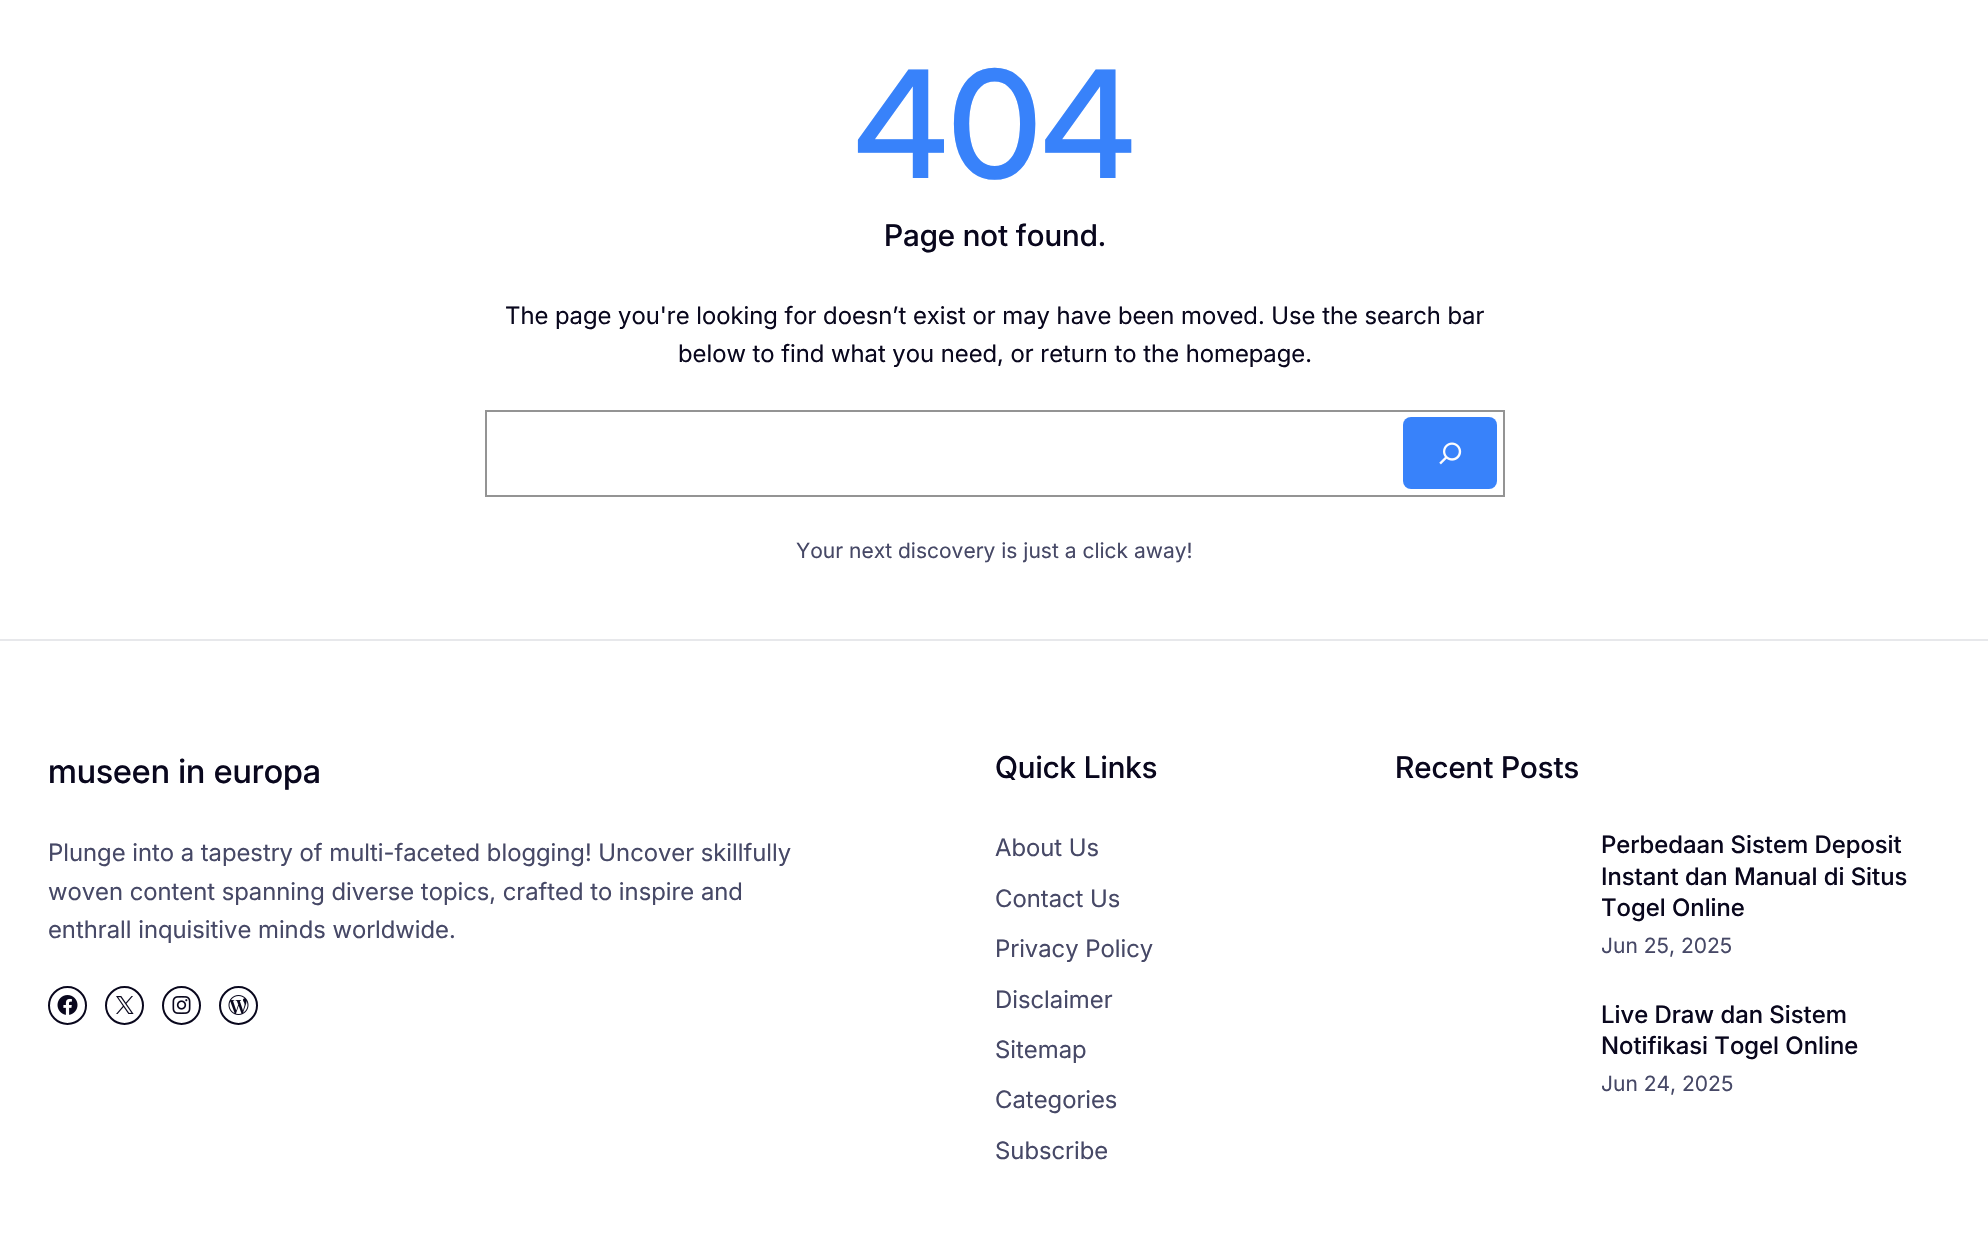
void draw(SkCanvas* canvas) {
	SkPaint fill;
	fill.setAntiAlias(true);
	auto makeFont = [&](const char* family, int weight, float size, bool italic = false) {
		SkFontStyle style(weight, SkFontStyle::kNormal_Width,
			italic ? SkFontStyle::kItalic_Slant : SkFontStyle::kUpright_Slant);
		SkFont result(fontMgr->matchFamilyStyle(family, style), size);
		result.setSubpixel(true);
		return result;
	};
	auto text = [&](const char* s, float x, float y, const SkFont& font) {
		canvas->drawString(s, x, y, font, fill);
	};
	auto box = [&](float l, float t, float r, float b) {
		canvas->drawRect(SkRect::MakeLTRB(l, t, r, b), fill);
	};
	auto roundBox = [&](float l, float t, float r, float b, float radius) {
		canvas->drawRoundRect(SkRect::MakeLTRB(l, t, r, b), radius, radius, fill);
	};
	auto picture = [&](const char* path, float l, float t, float r, float b) {
		auto image = SkImages::DeferredFromEncodedData(SkData::MakeFromFileName(path));
		canvas->drawImageRect(image, SkRect::MakeLTRB(l, t, r, b), SkSamplingOptions());
	};
	canvas->clear(0xFFFFFFFF);
	fill.setStyle(SkPaint::kStroke_Style);
	fill.setStrokeWidth(2);
	fill.setColor(0xFF949494);
	canvas->drawRect(SkRect::MakeLTRB(486, 411, 1504, 496), fill);
	fill.setStyle(SkPaint::kFill_Style);
	fill.setColor(0xFF3882FA);
	roundBox(1403, 417, 1497, 489, 8);
	picture("image0.png", 1439, 442, 1462, 465);
	fill.setColor(0xFFE7E8EB);
	box(0, 639, 1988, 641);
	fill.setStyle(SkPaint::kStroke_Style);
	fill.setColor(0xFF09071D);
	canvas->drawCircle(67.5f, 1005.5f, 18.5f, fill);
	picture("image1.png", 57, 995, 78, 1015);
	canvas->drawCircle(124.5f, 1005.5f, 18.5f, fill);
	picture("image2.png", 116, 996, 134, 1014);
	canvas->drawCircle(181.5f, 1005.5f, 18.5f, fill);
	picture("image3.png", 172, 996, 191, 1014);
	canvas->drawCircle(238.5f, 1005.5f, 18.5f, fill);
	picture("image4.png", 228, 995, 249, 1015);
	auto font1 = makeFont("Inter", 500, 149);
	fill.setStyle(SkPaint::kFill_Style);
	fill.setColor(0xFF3882FA);
	text("404", 854, 178, font1);
	auto font2 = makeFont("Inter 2", 500, 30);
	fill.setColor(0xFF09071D);
	text("Page not found.", 884, 246, font2);
	auto font3 = makeFont("Inter", 400, 24);
	text("The page you're looking for doesn’t exist or may have been moved. Use the search bar", 505, 324, font3);
	text("below to find what you need, or return to the homepage.", 678, 362, font3);
	auto font4 = makeFont("Inter 2", 400, 21);
	fill.setColor(0xFF464866);
	text("Your next discovery is just a click away!", 796, 558, font4);
	auto font5 = makeFont("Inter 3", 500, 33);
	fill.setColor(0xFF09071D);
	text("museen in europa", 48, 783, font5);
	fill.setColor(0xFF464866);
	text("Plunge into a tapestry of multi-faceted blogging! Uncover skillfully", 48, 861, font3);
	text("woven content spanning diverse topics, crafted to inspire and", 48, 900, font3);
	text("enthrall inquisitive minds worldwide.", 48, 938, font3);
	fill.setColor(0xFF09071D);
	text("Quick Links", 995, 778, font2);
	fill.setColor(0xFF464866);
	text("About Us", 995, 856, font3);
	text("Contact Us", 995, 907, font3);
	text("Privacy Policy", 995, 957, font3);
	text("Disclaimer", 995, 1008, font3);
	text("Sitemap", 995, 1058, font3);
	text("Categories", 995, 1108, font3);
	text("Subscribe", 995, 1159, font3);
	fill.setColor(0xFF09071D);
	text("Recent Posts", 1395, 778, font2);
	auto font6 = makeFont("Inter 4", 500, 24);
	text("Perbedaan Sistem Deposit", 1601, 853, font6);
	text("Instant dan Manual di Situs", 1601, 885, font6);
	text("Togel Online", 1601, 916, font6);
	fill.setColor(0xFF464866);
	text("Jun 25, 2025", 1601, 953, font4);
	fill.setColor(0xFF09071D);
	text("Live Draw dan Sistem", 1601, 1023, font6);
	text("Notifikasi Togel Online", 1601, 1054, font6);
	fill.setColor(0xFF464866);
	text("Jun 24, 2025", 1601, 1091, font4);
}
